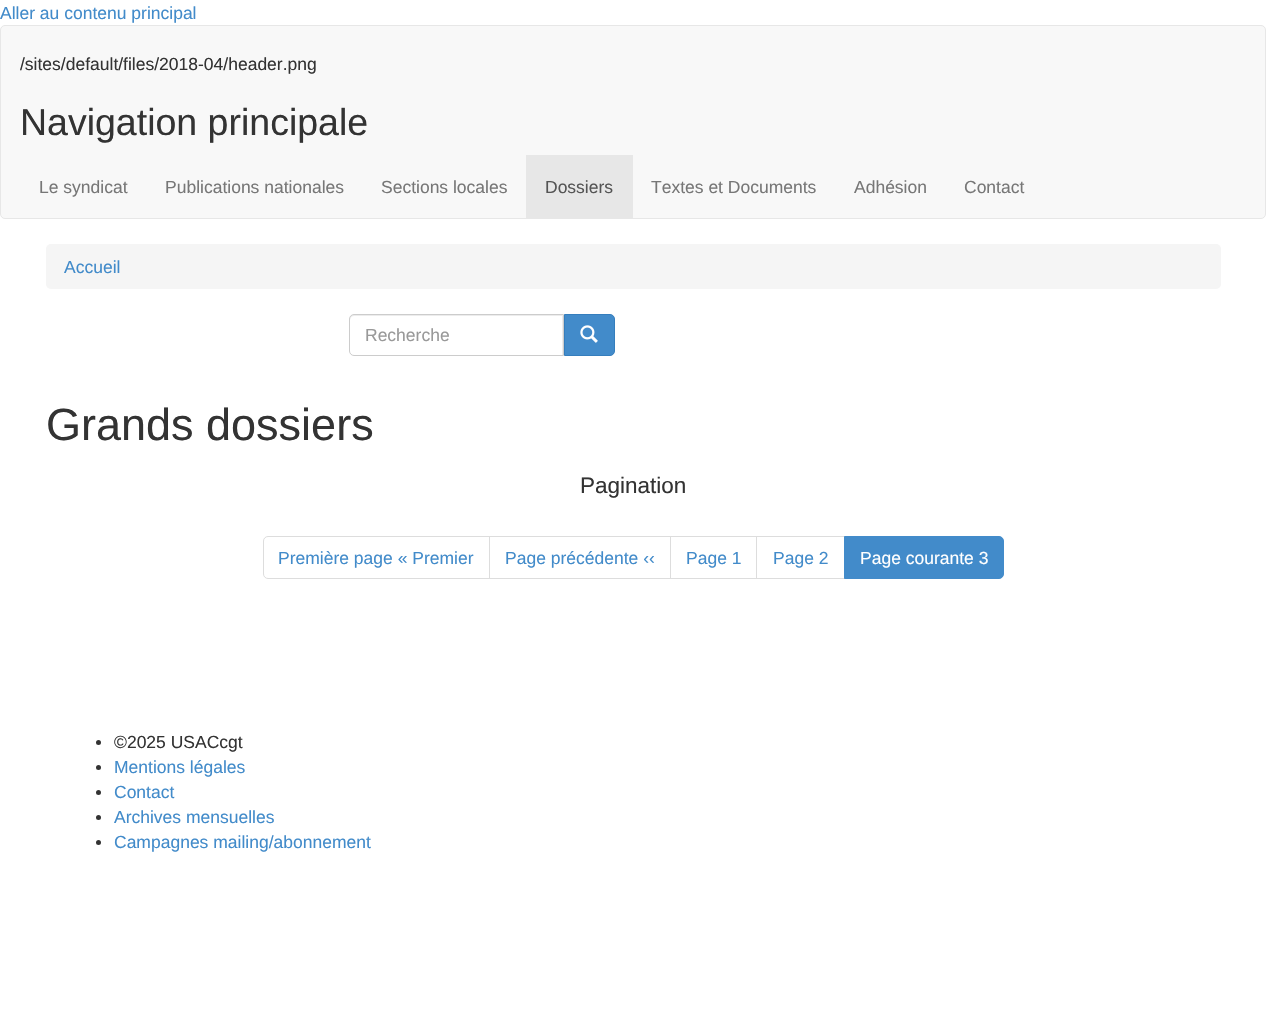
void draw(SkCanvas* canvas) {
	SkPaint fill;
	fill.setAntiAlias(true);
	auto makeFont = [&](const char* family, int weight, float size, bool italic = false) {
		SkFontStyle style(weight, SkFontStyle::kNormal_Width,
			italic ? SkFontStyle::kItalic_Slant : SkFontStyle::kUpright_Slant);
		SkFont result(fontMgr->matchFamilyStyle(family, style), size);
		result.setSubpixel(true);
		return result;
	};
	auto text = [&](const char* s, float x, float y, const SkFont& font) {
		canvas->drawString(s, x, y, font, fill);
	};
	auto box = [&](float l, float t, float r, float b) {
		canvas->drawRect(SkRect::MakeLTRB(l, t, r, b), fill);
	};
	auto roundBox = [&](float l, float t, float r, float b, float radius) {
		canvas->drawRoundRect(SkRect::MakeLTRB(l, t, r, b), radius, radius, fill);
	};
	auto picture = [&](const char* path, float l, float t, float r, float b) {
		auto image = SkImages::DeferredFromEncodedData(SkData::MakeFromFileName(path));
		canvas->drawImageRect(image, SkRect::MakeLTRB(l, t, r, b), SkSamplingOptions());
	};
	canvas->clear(0xFFFFFFFF);
	fill.setColor(0xFFF8F8F8);
	canvas->drawRoundRect(SkRect::MakeLTRB(0.5f, 25.5f, 1265.5f, 218.5f), 4.5f, 4.5f, fill);
	fill.setStyle(SkPaint::kStroke_Style);
	fill.setStrokeWidth(1);
	fill.setColor(0xFFE7E7E7);
	canvas->drawRoundRect(SkRect::MakeLTRB(0.5f, 25.5f, 1265.5f, 218.5f), 4.5f, 4.5f, fill);
	fill.setStyle(SkPaint::kFill_Style);
	box(526, 155, 633, 218);
	fill.setColor(0xFFF5F5F5);
	roundBox(46, 244, 1221, 289, 5);
	fill.setColor(0xFFECECEC);
	canvas->drawPath(SkPathBuilder().moveTo(354, 316).lineTo(562, 316).lineTo(562, 355).lineTo(563, 355).lineTo(563, 315).lineTo(352, 315).cubicTo(350, 316, 350, 318, 350, 320).cubicTo(350, 318, 352, 316, 354, 316).close().detach(), fill);
	fill.setStyle(SkPaint::kStroke_Style);
	fill.setColor(0xFFCCCCCC);
	canvas->drawPath(SkPathBuilder().moveTo(354, 314.5f).lineTo(563.5f, 314.5f).lineTo(563.5f, 355.5f).lineTo(354, 355.5f).cubicTo(351.5f, 355.5f, 349.5f, 353.5f, 349.5f, 351).lineTo(349.5f, 319).cubicTo(349.5f, 316.5f, 351.5f, 314.5f, 354, 314.5f).close().detach(), fill);
	fill.setStyle(SkPaint::kFill_Style);
	fill.setColor(0xFF428BCA);
	canvas->drawPath(SkPathBuilder().moveTo(564.5f, 314.5f).lineTo(610, 314.5f).cubicTo(612.5f, 314.5f, 614.5f, 316.5f, 614.5f, 319).lineTo(614.5f, 351).cubicTo(614.5f, 353.5f, 612.5f, 355.5f, 610, 355.5f).lineTo(564.5f, 355.5f).close().detach(), fill);
	fill.setStyle(SkPaint::kStroke_Style);
	fill.setColor(0xFF357EBD);
	canvas->drawPath(SkPathBuilder().moveTo(564.5f, 314.5f).lineTo(610, 314.5f).cubicTo(612.5f, 314.5f, 614.5f, 316.5f, 614.5f, 319).lineTo(614.5f, 351).cubicTo(614.5f, 353.5f, 612.5f, 355.5f, 610, 355.5f).lineTo(564.5f, 355.5f).close().detach(), fill);
	picture("image0.png", 580, 325, 598, 343);
	fill.setColor(0xFFDDDDDD);
	canvas->drawPath(SkPathBuilder().moveTo(268, 536.5f).lineTo(489.5f, 536.5f).lineTo(489.5f, 578.5f).lineTo(268, 578.5f).cubicTo(265.5f, 578.5f, 263.5f, 576.5f, 263.5f, 574).lineTo(263.5f, 541).cubicTo(263.5f, 538.5f, 265.5f, 536.5f, 268, 536.5f).close().detach(), fill);
	canvas->drawRect(SkRect::MakeLTRB(489.5f, 536.5f, 670.5f, 578.5f), fill);
	canvas->drawRect(SkRect::MakeLTRB(670.5f, 536.5f, 757.5f, 578.5f), fill);
	fill.setStyle(SkPaint::kFill_Style);
	fill.setColor(0xFFFFFFFF);
	box(757, 537, 758, 578);
	fill.setStyle(SkPaint::kStroke_Style);
	fill.setColor(0xFFDDDDDD);
	canvas->drawRect(SkRect::MakeLTRB(756.5f, 536.5f, 844.5f, 578.5f), fill);
	fill.setStyle(SkPaint::kFill_Style);
	fill.setColor(0xFF428BCA);
	canvas->drawPath(SkPathBuilder().moveTo(844.5f, 536.5f).lineTo(999, 536.5f).cubicTo(1001.5f, 536.5f, 1003.5f, 538.5f, 1003.5f, 541).lineTo(1003.5f, 574).cubicTo(1003.5f, 576.5f, 1001.5f, 578.5f, 999, 578.5f).lineTo(844.5f, 578.5f).close().detach(), fill);
	fill.setStyle(SkPaint::kStroke_Style);
	canvas->drawPath(SkPathBuilder().moveTo(844.5f, 536.5f).lineTo(999, 536.5f).cubicTo(1001.5f, 536.5f, 1003.5f, 538.5f, 1003.5f, 541).lineTo(1003.5f, 574).cubicTo(1003.5f, 576.5f, 1001.5f, 578.5f, 999, 578.5f).lineTo(844.5f, 578.5f).close().detach(), fill);
	fill.setStyle(SkPaint::kFill_Style);
	fill.setColor(0xFF333333);
	canvas->drawCircle(98.5f, 742.5f, 2.5f, fill);
	canvas->drawCircle(98.5f, 767.5f, 2.5f, fill);
	canvas->drawCircle(98.5f, 792.5f, 2.5f, fill);
	canvas->drawCircle(98.5f, 817.5f, 2.5f, fill);
	canvas->drawCircle(98.5f, 842.5f, 2.5f, fill);
	auto font1 = makeFont("Liberation Sans", 400, 17.5f);
	fill.setColor(0xFF428BCA);
	text("Aller au contenu principal", 0, 19, font1);
	fill.setColor(0xFF333333);
	text("/sites/default/files/2018-04/header.png", 20, 70, font1);
	auto font2 = makeFont("Liberation Sans", 400, 37.5f);
	text("Navigation principale", 20, 135, font2);
	fill.setColor(0xFF777777);
	text("Le syndicat", 39, 193, font1);
	text("Publications nationales", 165, 193, font1);
	text("Sections locales", 381, 193, font1);
	fill.setColor(0xFF555555);
	text("Dossiers", 545, 193, font1);
	fill.setColor(0xFF777777);
	text("Textes et Documents", 651, 193, font1);
	text("Adhésion", 854, 193, font1);
	text("Contact", 964, 193, font1);
	fill.setColor(0xFF428BCA);
	text("Accueil", 64, 273, font1);
	fill.setColor(0xFF999999);
	text("Recherche", 365, 341, font1);
	auto font3 = makeFont("Liberation Sans", 400, 45);
	fill.setColor(0xFF333333);
	text("Grands dossiers", 46, 440, font3);
	auto font4 = makeFont("Liberation Sans", 400, 22.5f);
	text("Pagination", 580, 493, font4);
	fill.setColor(0xFF428BCA);
	text("Première page « Premier", 278, 564, font1);
	text("Page précédente ‹‹", 505, 564, font1);
	text("Page 1", 686, 564, font1);
	text("Page 2", 773, 564, font1);
	fill.setColor(0xFFFFFFFF);
	text("Page courante 3", 860, 564, font1);
	fill.setColor(0xFF333333);
	text("©2025 USACcgt", 114, 748, font1);
	fill.setColor(0xFF428BCA);
	text("Mentions légales", 114, 773, font1);
	text("Contact", 114, 798, font1);
	text("Archives mensuelles", 114, 823, font1);
	text("Campagnes mailing/abonnement", 114, 848, font1);
}
